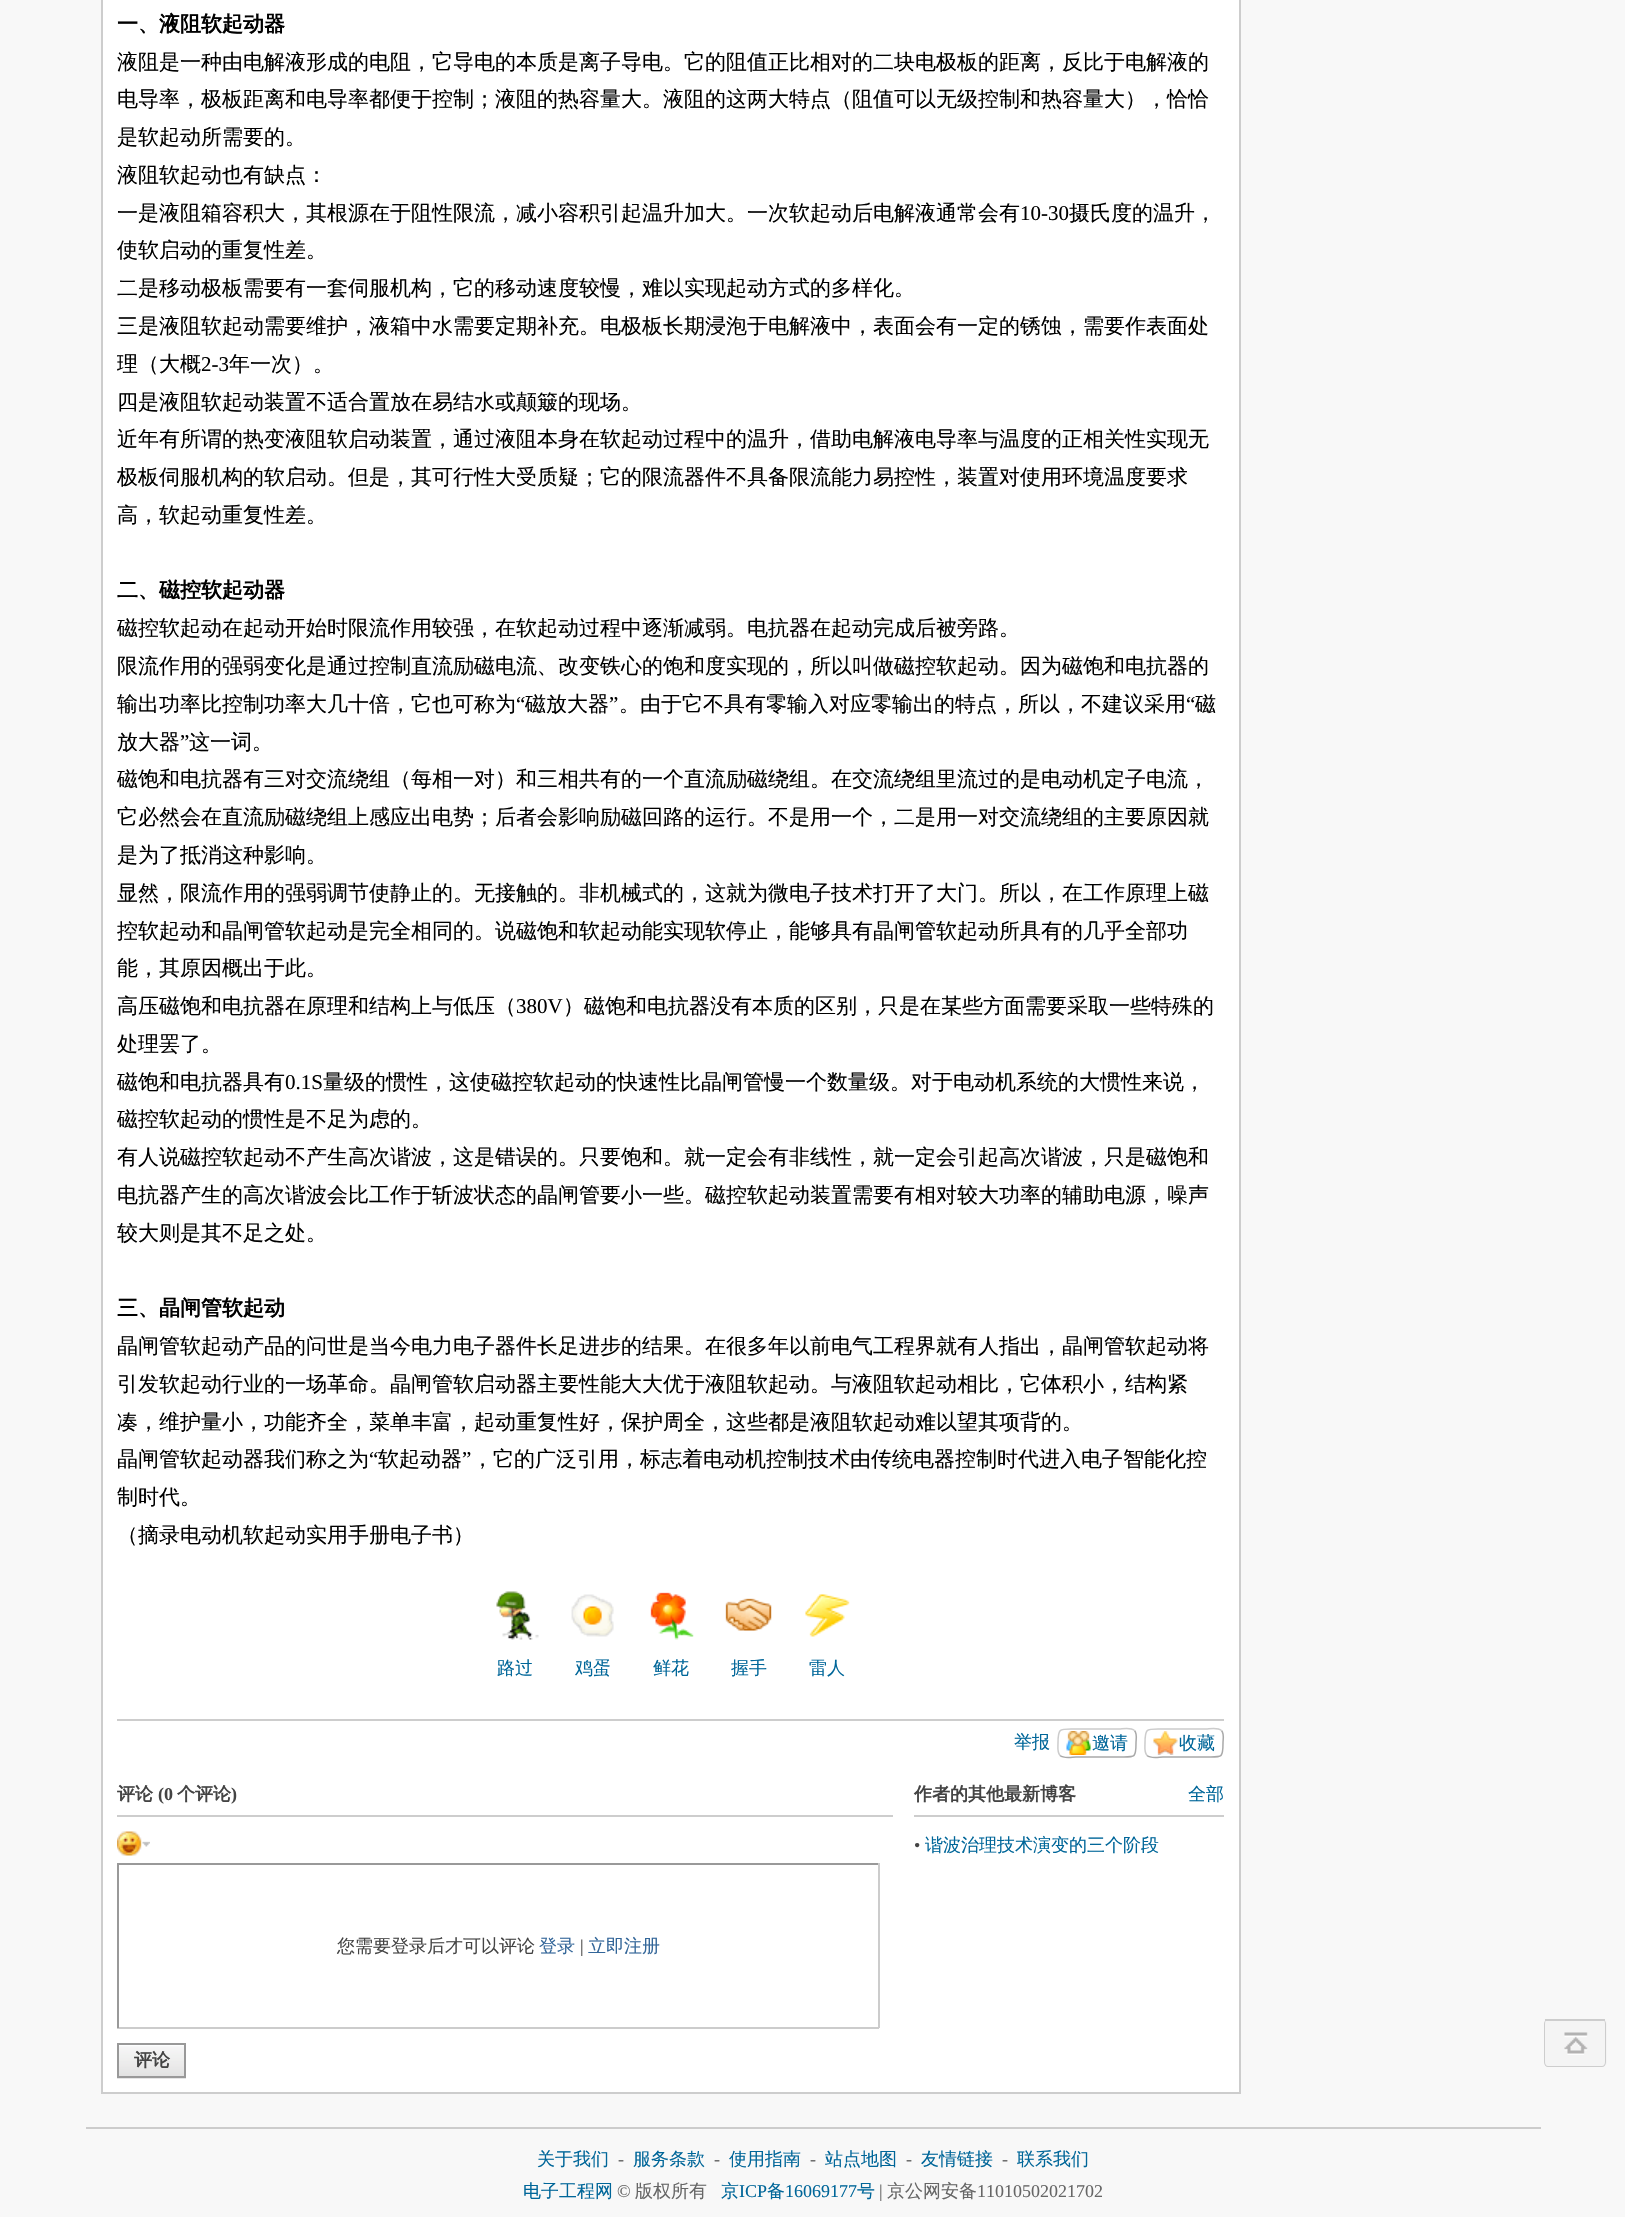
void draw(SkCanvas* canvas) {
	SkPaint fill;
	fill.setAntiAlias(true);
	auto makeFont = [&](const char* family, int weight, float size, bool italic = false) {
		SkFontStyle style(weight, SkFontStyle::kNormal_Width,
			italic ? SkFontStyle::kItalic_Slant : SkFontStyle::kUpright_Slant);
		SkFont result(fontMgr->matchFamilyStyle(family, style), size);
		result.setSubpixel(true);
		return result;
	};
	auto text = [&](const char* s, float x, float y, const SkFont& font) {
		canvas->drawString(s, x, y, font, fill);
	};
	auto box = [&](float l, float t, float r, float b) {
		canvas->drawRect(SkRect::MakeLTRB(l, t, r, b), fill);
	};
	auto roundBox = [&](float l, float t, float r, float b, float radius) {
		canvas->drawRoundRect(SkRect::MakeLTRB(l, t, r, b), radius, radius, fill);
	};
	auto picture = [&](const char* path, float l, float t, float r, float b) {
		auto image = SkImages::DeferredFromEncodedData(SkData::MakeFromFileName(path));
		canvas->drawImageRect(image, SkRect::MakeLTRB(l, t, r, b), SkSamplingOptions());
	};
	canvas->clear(0xFFF8F8F8);
	fill.setColor(0xFFFFFFFF);
	canvas->drawRect(SkRect::MakeLTRB(102, -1, 1240, 2093), fill);
	fill.setStyle(SkPaint::kStroke_Style);
	fill.setStrokeWidth(2);
	fill.setColor(0xFFCDCDCD);
	canvas->drawRect(SkRect::MakeLTRB(102, -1, 1240, 2093), fill);
	picture("image0.png", 496, 1591, 539, 1640);
	picture("image1.png", 571, 1594, 614, 1637);
	picture("image2.png", 650, 1592, 694, 1640);
	picture("image3.png", 725, 1598, 772, 1631);
	picture("image4.png", 805, 1594, 850, 1637);
	fill.setStyle(SkPaint::kFill_Style);
	box(117, 1719, 1224, 1721);
	picture("image5.png", 1066, 1731, 1091, 1755);
	fill.setStyle(SkPaint::kStroke_Style);
	fill.setStrokeWidth(1.5f);
	fill.setColor(0xFFA9A9A9);
	canvas->drawPath(SkPathBuilder().moveTo(1134.5f, 1730.5f).cubicTo(1137.5f, 1734, 1136, 1739, 1136, 1743).cubicTo(1136, 1758.5f, 1135, 1757, 1119, 1757).lineTo(1076, 1757).cubicTo(1072, 1757, 1064, 1759, 1060, 1755.5f).detach(), fill);
	fill.setColor(0xFFCCCCCC);
	canvas->drawPath(SkPathBuilder().moveTo(1060, 1755.5f).cubicTo(1057, 1752, 1058, 1747, 1058, 1743).cubicTo(1058, 1727.5f, 1059.5f, 1729, 1076, 1729).lineTo(1119, 1729).cubicTo(1122.5f, 1729, 1130.5f, 1727, 1134.5f, 1730.5f).detach(), fill);
	picture("image6.png", 1153, 1731, 1178, 1755);
	fill.setColor(0xFFA9A9A9);
	canvas->drawPath(SkPathBuilder().moveTo(1221.5f, 1730.5f).cubicTo(1224.5f, 1734, 1223, 1739, 1223, 1743).cubicTo(1223, 1758.5f, 1222, 1757, 1206, 1757).lineTo(1163, 1757).cubicTo(1159, 1757, 1151, 1759, 1147, 1755.5f).detach(), fill);
	fill.setColor(0xFFCCCCCC);
	canvas->drawPath(SkPathBuilder().moveTo(1147, 1755.5f).cubicTo(1144, 1752, 1145, 1747, 1145, 1743).cubicTo(1145, 1727.5f, 1146.5f, 1729, 1163, 1729).lineTo(1206, 1729).cubicTo(1209.5f, 1729, 1217.5f, 1727, 1221.5f, 1730.5f).detach(), fill);
	fill.setStyle(SkPaint::kFill_Style);
	fill.setColor(0xFFCDCDCD);
	box(117, 1815, 893, 1817);
	picture("image7.png", 117, 1831, 150, 1856);
	fill.setColor(0xFF999999);
	box(117, 1863, 879, 1865);
	fill.setColor(0xFFCCCCCC);
	box(878, 1863, 880, 2028);
	box(117, 2027, 879, 2029);
	fill.setColor(0xFF999999);
	box(117, 1863, 119, 2028);
	fill.setColor(0xFFE5E5E5);
	box(117, 2078, 186, 2079);
	picture("image8.png", 119, 2045, 184, 2076);
	fill.setStyle(SkPaint::kStroke_Style);
	fill.setStrokeWidth(2);
	fill.setColor(0xFF999999);
	canvas->drawRect(SkRect::MakeLTRB(118, 2044, 185, 2077), fill);
	fill.setStyle(SkPaint::kFill_Style);
	fill.setColor(0xFFCDCDCD);
	box(914, 1815, 1224, 1817);
	fill.setColor(0xFFF4F4F4);
	roundBox(1544, 2019, 1607, 2067, 5);
	fill.setColor(0xFFCDCDCD);
	canvas->drawPath(SkPathBuilder(SkPathFillType::kEvenOdd).moveTo(1548, 2019).lineTo(1602, 2019).cubicTo(1604, 2019, 1606, 2021, 1606, 2024).lineTo(1606, 2062).cubicTo(1606, 2065, 1604, 2067, 1602, 2067).lineTo(1548, 2067).cubicTo(1546, 2067, 1544, 2065, 1544, 2062).lineTo(1544, 2024).cubicTo(1544, 2021, 1546, 2019, 1548, 2019).close().moveTo(1548, 2019).lineTo(1602, 2019).cubicTo(1604, 2019, 1605, 2021, 1605, 2024).lineTo(1605, 2062).cubicTo(1605, 2064, 1604, 2066, 1602, 2066).lineTo(1548, 2066).cubicTo(1546, 2066, 1545, 2064, 1545, 2062).lineTo(1545, 2024).cubicTo(1545, 2021, 1546, 2019, 1548, 2019).close().detach(), fill);
	picture("image9.png", 1564, 2032, 1588, 2055);
	box(1545, 2019, 1605, 2021);
	fill.setColor(0xFFCCCCCC);
	box(86, 2127, 1541, 2129);
	auto font1 = makeFont("WenQuanYi Zen Hei", 700, 21);
	fill.setColor(0xFF000000);
	text("一、液阻软起动器", 117, 31, font1);
	auto font2 = makeFont("WenQuanYi Zen Hei", 500, 21);
	text("液阻是一种由电解液形成的电阻，它导电的本质是离子导电。它的阻值正比相对的二块电极板的距离，反比于电解液的", 117, 69, font2);
	text("电导率，极板距离和电导率都便于控制；液阻的热容量大。液阻的这两大特点（阻值可以无级控制和热容量大），恰恰", 117, 106, font2);
	text("是软起动所需要的。", 117, 144, font2);
	text("液阻软起动也有缺点：", 117, 182, font2);
	text("一是液阻箱容积大，其根源在于阻性限流，减小容积引起温升加大。一次软起动后电解液通常会有", 117, 220, font2);
	auto font3 = makeFont("Liberation Serif", 400, 21);
	text("10-30", 1020, 220, font3);
	text("摄氏度的温升，", 1069, 220, font2);
	text("使软启动的重复性差。", 117, 257, font2);
	text("二是移动极板需要有一套伺服机构，它的移动速度较慢，难以实现起动方式的多样化。", 117, 295, font2);
	text("三是液阻软起动需要维护，液箱中水需要定期补充。电极板长期浸泡于电解液中，表面会有一定的锈蚀，需要作表面处", 117, 333, font2);
	text("理（大概", 117, 371, font2);
	text("2-3", 201, 371, font3);
	text("年一次）。", 229, 371, font2);
	text("四是液阻软起动装置不适合置放在易结水或颠簸的现场。", 117, 409, font2);
	text("近年有所谓的热变液阻软启动装置，通过液阻本身在软起动过程中的温升，借助电解液电导率与温度的正相关性实现无", 117, 446, font2);
	text("极板伺服机构的软启动。但是，其可行性大受质疑；它的限流器件不具备限流能力易控性，装置对使用环境温度要求", 117, 484, font2);
	text("高，软起动重复性差。", 117, 522, font2);
	text("二、磁控软起动器", 117, 597, font1);
	text("磁控软起动在起动开始时限流作用较强，在软起动过程中逐渐减弱。电抗器在起动完成后被旁路。", 117, 635, font2);
	text("限流作用的强弱变化是通过控制直流励磁电流、改变铁心的饱和度实现的，所以叫做磁控软起动。因为磁饱和电抗器的", 117, 673, font2);
	text("输出功率比控制功率大几十倍，它也可称为", 117, 711, font2);
	text("“", 516, 711, font3);
	text("磁放大器", 525, 711, font2);
	text("”", 609, 711, font3);
	text("。由于它不具有零输入对应零输出的特点，所以，不建议采用", 619, 711, font2);
	text("“", 1186, 711, font3);
	text("磁", 1195, 711, font2);
	text("放大器", 117, 749, font2);
	text("”", 180, 749, font3);
	text("这一词。", 189, 749, font2);
	text("磁饱和电抗器有三对交流绕组（每相一对）和三相共有的一个直流励磁绕组。在交流绕组里流过的是电动机定子电流，", 117, 786, font2);
	text("它必然会在直流励磁绕组上感应出电势；后者会影响励磁回路的运行。不是用一个，二是用一对交流绕组的主要原因就", 117, 824, font2);
	text("是为了抵消这种影响。", 117, 862, font2);
	text("显然，限流作用的强弱调节使静止的。无接触的。非机械式的，这就为微电子技术打开了大门。所以，在工作原理上磁", 117, 900, font2);
	text("控软起动和晶闸管软起动是完全相同的。说磁饱和软起动能实现软停止，能够具有晶闸管软起动所具有的几乎全部功", 117, 938, font2);
	text("能，其原因概出于此。", 117, 975, font2);
	text("高压磁饱和电抗器在原理和结构上与低压（", 117, 1013, font2);
	text("380V", 516, 1013, font3);
	text("）磁饱和电抗器没有本质的区别，只是在某些方面需要采取一些特殊的", 563, 1013, font2);
	text("处理罢了。", 117, 1051, font2);
	text("磁饱和电抗器具有", 117, 1089, font2);
	text("0.1S", 285, 1089, font3);
	text("量级的惯性，这使磁控软起动的快速性比晶闸管慢一个数量级。对于电动机系统的大惯性来说，", 323, 1089, font2);
	text("磁控软起动的惯性是不足为虑的。", 117, 1126, font2);
	text("有人说磁控软起动不产生高次谐波，这是错误的。只要饱和。就一定会有非线性，就一定会引起高次谐波，只是磁饱和", 117, 1164, font2);
	text("电抗器产生的高次谐波会比工作于斩波状态的晶闸管要小一些。磁控软起动装置需要有相对较大功率的辅助电源，噪声", 117, 1202, font2);
	text("较大则是其不足之处。", 117, 1240, font2);
	text("三、晶闸管软起动", 117, 1315, font1);
	text("晶闸管软起动产品的问世是当今电力电子器件长足进步的结果。在很多年以前电气工程界就有人指出，晶闸管软起动将", 117, 1353, font2);
	text("引发软起动行业的一场革命。晶闸管软启动器主要性能大大优于液阻软起动。与液阻软起动相比，它体积小，结构紧", 117, 1391, font2);
	text("凑，维护量小，功能齐全，菜单丰富，起动重复性好，保护周全，这些都是液阻软起动难以望其项背的。", 117, 1429, font2);
	text("晶闸管软起动器我们称之为", 117, 1466, font2);
	text("“", 369, 1466, font3);
	text("软起动器", 378, 1466, font2);
	text("”", 462, 1466, font3);
	text("，它的广泛引用，标志着电动机控制技术由传统电器控制时代进入电子智能化控", 472, 1466, font2);
	text("制时代。", 117, 1504, font2);
	text("（摘录电动机软起动实用手册电子书）", 117, 1542, font2);
	auto font4 = makeFont("WenQuanYi Zen Hei", 500, 18);
	fill.setColor(0xFF006699);
	text("路过", 497, 1674, font4);
	text("鸡蛋", 575, 1674, font4);
	text("鲜花", 653, 1674, font4);
	text("握手", 731, 1674, font4);
	text("雷人", 809, 1674, font4);
	text("举报", 1014, 1748, font4);
	text("邀请", 1092, 1749, font4);
	text("收藏", 1179, 1749, font4);
	auto font5 = makeFont("WenQuanYi Zen Hei", 700, 18);
	fill.setColor(0xFF444444);
	text("评论", 117, 1800, font5);
	auto font6 = makeFont("Liberation Serif", 700, 18);
	text("(0", 158, 1800, font6);
	text("个评论", 177, 1800, font5);
	text(")", 231, 1800, font6);
	text("您需要登录后才可以评论", 337, 1952, font4);
	fill.setColor(0xFF336699);
	text("登录", 539, 1952, font4);
	auto font7 = makeFont("Liberation Serif", 400, 18);
	fill.setColor(0xFF444444);
	text("|", 580, 1952, font7);
	fill.setColor(0xFF336699);
	text("立即注册", 588, 1952, font4);
	fill.setColor(0xFF444444);
	text("评论", 134, 2066, font5);
	text("作者的其他最新博客", 914, 1800, font5);
	fill.setColor(0xFF006699);
	text("全部", 1188, 1800, font4);
	fill.setColor(0xFF444444);
	text("•", 914, 1851, font7);
	fill.setColor(0xFF006699);
	text("谐波治理技术演变的三个阶段", 925, 1851, font4);
	text("关于我们", 537, 2165, font4);
	fill.setColor(0xFF666666);
	text("-", 618, 2165, font7);
	fill.setColor(0xFF006699);
	text("服务条款", 633, 2165, font4);
	fill.setColor(0xFF666666);
	text("-", 714, 2165, font7);
	fill.setColor(0xFF006699);
	text("使用指南", 729, 2165, font4);
	fill.setColor(0xFF666666);
	text("-", 810, 2165, font7);
	fill.setColor(0xFF006699);
	text("站点地图", 825, 2165, font4);
	fill.setColor(0xFF666666);
	text("-", 906, 2165, font7);
	fill.setColor(0xFF006699);
	text("友情链接", 921, 2165, font4);
	fill.setColor(0xFF666666);
	text("-", 1002, 2165, font7);
	fill.setColor(0xFF006699);
	text("联系我们", 1017, 2165, font4);
	text("电子工程网", 523, 2197, font4);
	fill.setColor(0xFF666666);
	text("©", 617, 2197, font7);
	text("版权所有", 635, 2197, font4);
	fill.setColor(0xFF006699);
	text("京", 721, 2197, font4);
	text("ICP", 739, 2197, font7);
	text("备", 767, 2197, font4);
	text("16069177", 785, 2197, font7);
	text("号", 857, 2197, font4);
	fill.setColor(0xFF666666);
	text("|", 879, 2197, font7);
	text("京公网安备", 887, 2197, font4);
	text("11010502021702", 977, 2197, font7);
}
